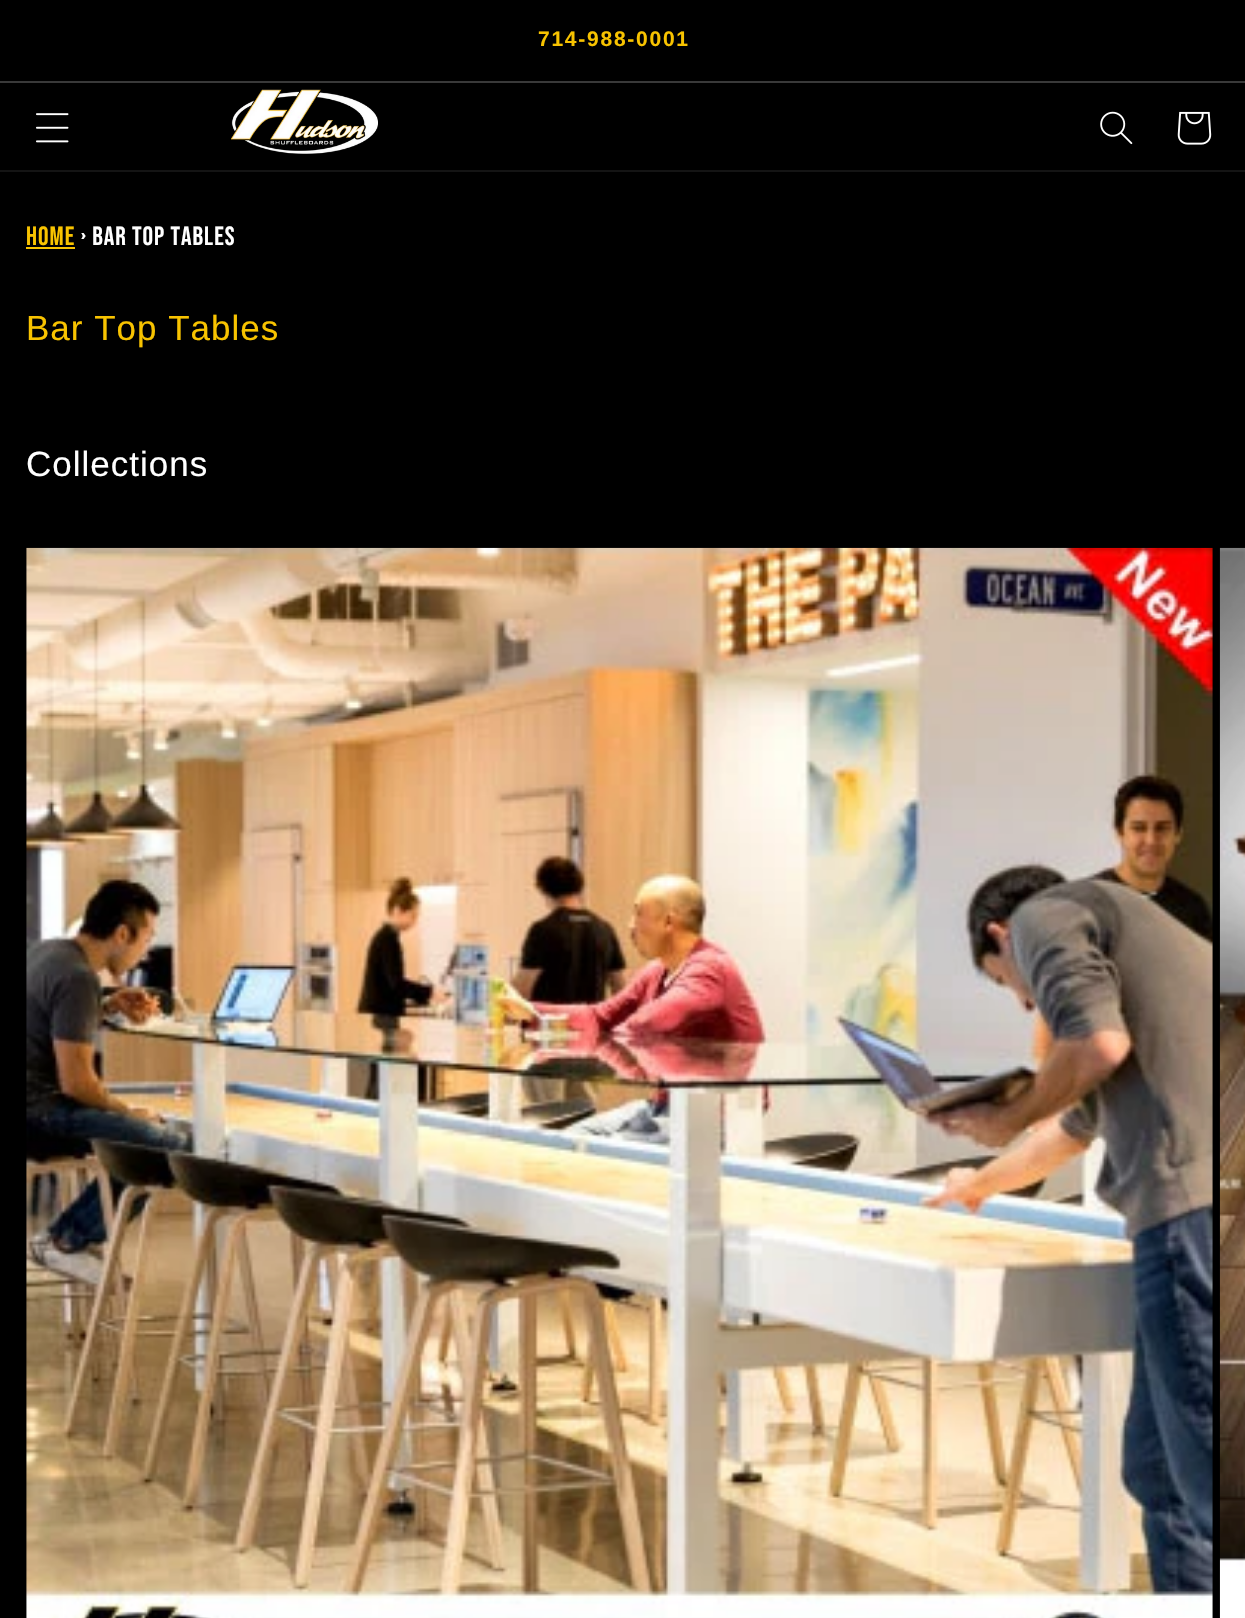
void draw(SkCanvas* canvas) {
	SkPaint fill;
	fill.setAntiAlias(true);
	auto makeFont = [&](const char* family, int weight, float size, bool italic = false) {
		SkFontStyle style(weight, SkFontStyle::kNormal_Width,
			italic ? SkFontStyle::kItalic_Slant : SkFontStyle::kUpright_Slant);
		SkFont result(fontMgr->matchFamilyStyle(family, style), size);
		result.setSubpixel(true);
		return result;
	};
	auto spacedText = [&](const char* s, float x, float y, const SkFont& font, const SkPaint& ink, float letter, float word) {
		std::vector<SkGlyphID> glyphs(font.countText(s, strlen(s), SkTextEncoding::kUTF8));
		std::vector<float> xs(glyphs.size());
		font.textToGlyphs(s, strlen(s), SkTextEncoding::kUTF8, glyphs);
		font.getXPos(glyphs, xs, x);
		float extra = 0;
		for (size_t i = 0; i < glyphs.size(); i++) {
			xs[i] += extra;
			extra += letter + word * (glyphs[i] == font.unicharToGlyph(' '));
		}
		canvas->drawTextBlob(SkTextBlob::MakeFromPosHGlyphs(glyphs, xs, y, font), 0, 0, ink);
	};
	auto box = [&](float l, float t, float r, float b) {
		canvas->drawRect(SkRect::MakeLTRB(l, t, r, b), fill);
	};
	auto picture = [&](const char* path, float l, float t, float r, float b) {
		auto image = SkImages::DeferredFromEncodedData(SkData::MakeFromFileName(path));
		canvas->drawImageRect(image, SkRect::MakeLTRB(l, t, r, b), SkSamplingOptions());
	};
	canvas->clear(0xFF000000);
	fill.setColor(0xFF393939);
	box(0, 81, 1245, 83);
	fill.setColor(0xFF141414);
	box(0, 170, 1245, 172);
	picture("image0.png", 36, 113, 69, 143);
	picture("image1.png", 231, 89, 378, 154);
	picture("image2.png", 1100, 111, 1133, 145);
	picture("image3.png", 1177, 111, 1212, 145);
	fill.setColor(0xFFF8C300);
	box(26, 247, 75, 249);
	picture("image4.png", 26, 547, 1213, 1618);
	picture("image5.png", 1219, 547, 1245, 1618);
	auto font1 = makeFont("Liberation Sans", 700, 21);
	spacedText("714-988-0001", 538, 46, font1, fill, 1.75f, 0);
	auto font2 = makeFont("Bebas Neue", 400, 26.25f);
	spacedText("Home", 26, 245, font2, fill, 1, 0);
	fill.setColor(0xFFFFFFFF);
	spacedText("› Bar Top Tables", 81, 245, font2, fill, 1, 0);
	auto font3 = makeFont("Liberation Sans", 400, 35);
	fill.setColor(0xFFF8C300);
	spacedText("Bar Top Tables", 26, 340, font3, fill, 1, 0);
	fill.setColor(0xFFFFFFFF);
	spacedText("Collections", 26, 476, font3, fill, 1, 0);
}
